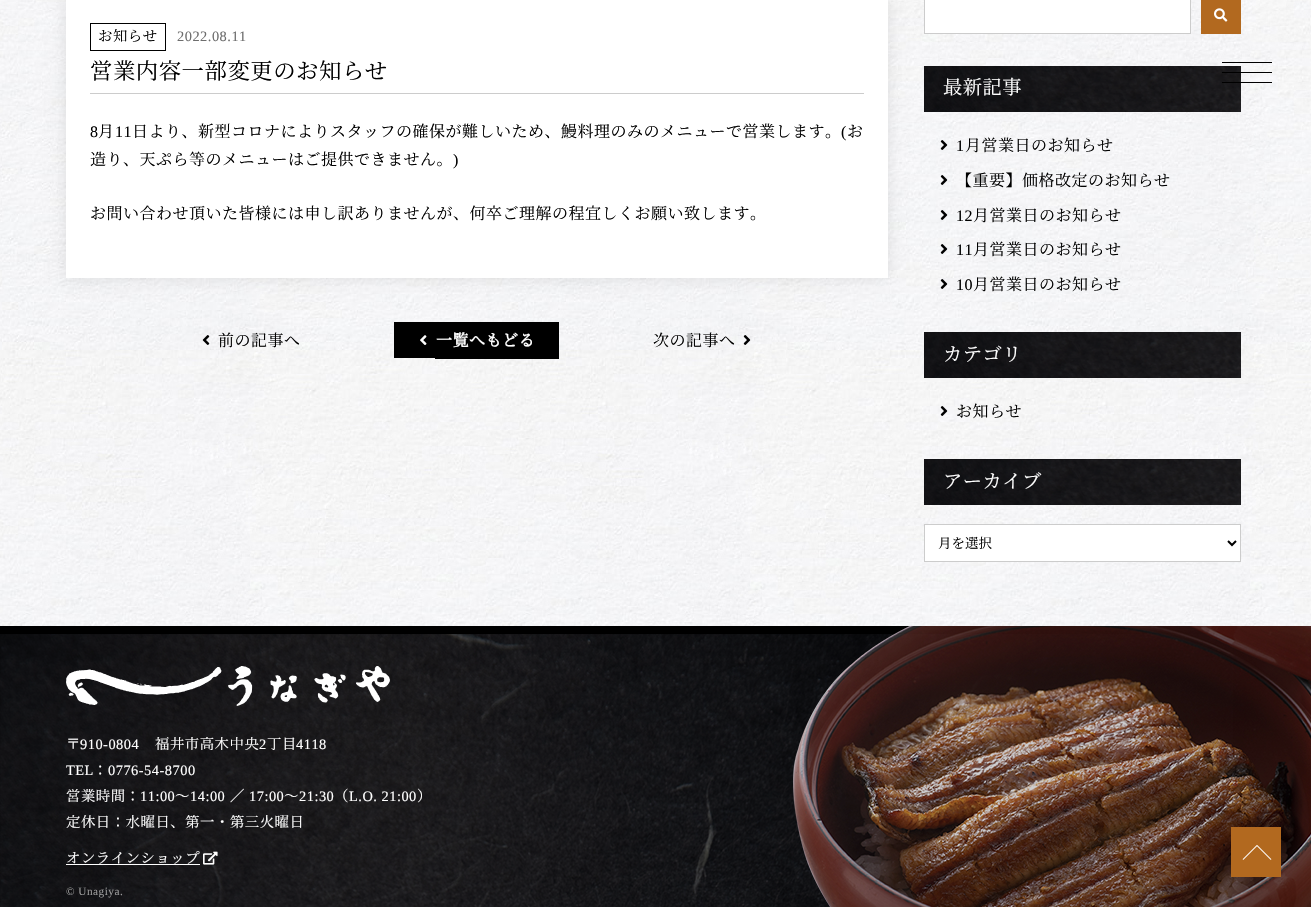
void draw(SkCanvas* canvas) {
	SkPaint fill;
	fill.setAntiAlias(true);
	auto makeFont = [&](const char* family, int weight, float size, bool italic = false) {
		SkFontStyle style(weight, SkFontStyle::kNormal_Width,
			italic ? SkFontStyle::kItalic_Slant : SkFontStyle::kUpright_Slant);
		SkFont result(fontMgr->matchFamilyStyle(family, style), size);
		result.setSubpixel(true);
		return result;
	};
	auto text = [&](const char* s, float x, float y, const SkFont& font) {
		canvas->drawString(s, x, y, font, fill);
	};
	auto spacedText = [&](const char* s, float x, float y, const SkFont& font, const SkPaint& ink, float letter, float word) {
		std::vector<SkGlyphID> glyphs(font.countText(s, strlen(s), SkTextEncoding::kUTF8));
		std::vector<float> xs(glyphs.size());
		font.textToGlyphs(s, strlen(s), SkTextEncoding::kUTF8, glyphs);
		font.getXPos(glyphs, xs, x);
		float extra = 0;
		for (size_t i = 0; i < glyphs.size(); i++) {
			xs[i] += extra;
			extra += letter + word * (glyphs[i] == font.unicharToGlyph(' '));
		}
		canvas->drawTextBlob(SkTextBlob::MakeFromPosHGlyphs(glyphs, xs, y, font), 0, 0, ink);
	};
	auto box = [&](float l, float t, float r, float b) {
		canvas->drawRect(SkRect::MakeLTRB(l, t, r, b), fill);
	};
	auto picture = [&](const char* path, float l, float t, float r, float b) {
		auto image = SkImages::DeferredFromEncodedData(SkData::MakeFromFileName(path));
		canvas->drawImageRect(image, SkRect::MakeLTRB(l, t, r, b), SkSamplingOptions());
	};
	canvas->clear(0xFFFFFFFF);
	picture("image0.png", 0, 0, 1311, 626);
	fill.setColor(0x1A000000);
	fill.setMaskFilter(SkMaskFilter::MakeBlur(kNormal_SkBlurStyle, 7.5f));
	canvas->drawRect(SkRect::MakeLTRB(66, -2, 888, 278), fill);
	fill.setMaskFilter(nullptr);
	fill.setColor(0xFFFFFFFF);
	box(66, 0, 888, 278);
	fill.setStyle(SkPaint::kStroke_Style);
	fill.setStrokeWidth(1);
	fill.setColor(0xFF000000);
	canvas->drawRect(SkRect::MakeLTRB(90.5f, 23.5f, 165.5f, 50.5f), fill);
	fill.setStyle(SkPaint::kFill_Style);
	fill.setColor(0xFFCCCCCC);
	box(90, 93, 864, 94);
	picture("image1.png", 202, 335, 210, 345);
	fill.setColor(0xFF000000);
	box(394, 322, 435, 358);
	picture("image2.png", 420, 335, 427, 345);
	box(435, 322, 559, 359);
	picture("image3.png", 743, 335, 751, 345);
	fill.setColor(0xFFFFFFFF);
	canvas->drawRect(SkRect::MakeLTRB(924.5f, -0.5f, 1190.5f, 33.5f), fill);
	fill.setStyle(SkPaint::kStroke_Style);
	fill.setColor(0xFFCCCCCC);
	canvas->drawRect(SkRect::MakeLTRB(924.5f, -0.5f, 1190.5f, 33.5f), fill);
	fill.setStyle(SkPaint::kFill_Style);
	fill.setColor(0xFFB2691F);
	box(1201, 0, 1241, 34);
	picture("image4.png", 1214, 8, 1228, 22);
	fill.setColor(0xFF000000);
	box(924, 66, 1241, 112);
	picture("image5.png", 924, 66, 1241, 112);
	picture("image6.png", 940, 140, 948, 150);
	picture("image7.png", 940, 175, 948, 185);
	picture("image8.png", 940, 210, 948, 220);
	picture("image9.png", 940, 244, 948, 254);
	picture("image10.png", 940, 279, 948, 289);
	box(924, 332, 1241, 378);
	picture("image5.png", 924, 332, 1241, 378);
	picture("image11.png", 940, 406, 948, 416);
	box(924, 459, 1241, 505);
	picture("image5.png", 924, 459, 1241, 505);
	fill.setColor(0xFFFFFFFF);
	canvas->drawRect(SkRect::MakeLTRB(924.5f, 524.5f, 1240.5f, 561.5f), fill);
	fill.setStyle(SkPaint::kStroke_Style);
	fill.setColor(0xFFCCCCCC);
	canvas->drawRect(SkRect::MakeLTRB(924.5f, 524.5f, 1240.5f, 561.5f), fill);
	fill.setStrokeWidth(2);
	fill.setColor(0xFF000000);
	canvas->drawPath(SkPathBuilder().moveTo(1228, 541).lineTo(1232, 545).lineTo(1236, 541).detach(), fill);
	fill.setStyle(SkPaint::kFill_Style);
	box(1222, 72, 1272, 73);
	box(1222, 62, 1272, 63);
	box(1222, 82, 1272, 83);
	box(0, 626, 1311, 907);
	picture("image12.png", 0, 634, 1233, 907);
	picture("image13.png", 793, 626, 1311, 907);
	picture("image14.png", 66, 666, 390, 706);
	fill.setColor(0xFFFFFFFF);
	box(66, 864, 200, 865);
	picture("image15.png", 203, 851, 218, 865);
	picture("image16.png", 1231, 827, 1281, 877);
	auto font1 = makeFont("Noto Serif JP", 200, 14.4f);
	fill.setColor(0xFF000000);
	spacedText("お知らせ", 98, 41, font1, fill, 0.5f, 0);
	auto font2 = makeFont("Liberation Serif", 400, 14.4f);
	fill.setColor(0xFF6D6D6D);
	spacedText("2022.08.11", 177, 41, font2, fill, 0.5f, 0);
	auto font3 = makeFont("Noto Serif JP", 200, 22.4f);
	fill.setColor(0xFF000000);
	spacedText("営業内容一部変更のお知らせ", 90, 79, font3, fill, 0.5f, 0);
	auto font4 = makeFont("Liberation Serif", 400, 16);
	spacedText("8", 90, 137, font4, fill, 0.5f, 0);
	auto font5 = makeFont("Noto Serif JP", 200, 16);
	spacedText("月", 98, 137, font5, fill, 0.5f, 0);
	spacedText("11", 115, 137, font4, fill, 0.5f, 0);
	spacedText("日より、新型コロナによりスタッフの確保が難しいため、鰻料理のみのメニューで営業します。", 132, 137, font5, fill, 0.5f, 0);
	spacedText("(", 841, 137, font4, fill, 0.5f, 0);
	spacedText("お", 847, 137, font5, fill, 0.5f, 0);
	spacedText("造り、天ぷら等のメニューはご提供できません。", 90, 165, font5, fill, 0.5f, 0);
	spacedText(")", 453, 165, font4, fill, 0.5f, 0);
	spacedText("お問い合わせ頂いた皆様には申し訳ありませんが、何卒ご理解の程宜しくお願い致します。", 90, 219, font5, fill, 0.5f, 0);
	spacedText("前の記事へ", 218, 346, font5, fill, 0.5f, 0);
	auto font6 = makeFont("Noto Serif JP", 700, 16);
	fill.setColor(0xFFFFFFFF);
	spacedText("一覧へもどる", 436, 346, font6, fill, 0.5f, 0);
	fill.setColor(0xFF000000);
	spacedText("次の記事へ", 653, 346, font5, fill, 0.5f, 0);
	auto font7 = makeFont("Noto Serif JP", 200, 19.25f);
	fill.setColor(0xFFFFFFFF);
	spacedText("最新記事", 943, 94, font7, fill, 0.5f, 0);
	fill.setColor(0xFF000000);
	spacedText("1", 956, 151, font4, fill, 0.5f, 0);
	spacedText("月営業日のお知らせ", 965, 151, font5, fill, 0.5f, 0);
	spacedText("【重要】価格改定のお知らせ", 956, 186, font5, fill, 0.5f, 0);
	spacedText("12", 956, 221, font4, fill, 0.5f, 0);
	spacedText("月営業日のお知らせ", 973, 221, font5, fill, 0.5f, 0);
	spacedText("11", 956, 255, font4, fill, 0.5f, 0);
	spacedText("月営業日のお知らせ", 973, 255, font5, fill, 0.5f, 0);
	spacedText("10", 956, 290, font4, fill, 0.5f, 0);
	spacedText("月営業日のお知らせ", 973, 290, font5, fill, 0.5f, 0);
	fill.setColor(0xFFFFFFFF);
	spacedText("カテゴリ", 943, 361, font7, fill, 0.5f, 0);
	fill.setColor(0xFF000000);
	spacedText("お知らせ", 956, 417, font5, fill, 0.5f, 0);
	fill.setColor(0xFFFFFFFF);
	spacedText("アーカイブ", 943, 488, font7, fill, 0.5f, 0);
	auto font8 = makeFont("Noto Serif JP", 200, 13.5f);
	fill.setColor(0xFF000000);
	text("月を選択", 938, 548, font8);
	fill.setColor(0xFFFFFFFF);
	spacedText("〒", 66, 749, font1, fill, 0.5f, 0);
	spacedText("910-0804", 80, 749, font2, fill, 0.5f, 0);
	spacedText("福井市高木中央", 155, 749, font1, fill, 0.5f, 0);
	spacedText("2", 259, 749, font2, fill, 0.5f, 0);
	spacedText("丁目", 267, 749, font1, fill, 0.5f, 0);
	spacedText("4118", 296, 749, font2, fill, 0.5f, 0);
	spacedText("TEL", 66, 775, font2, fill, 0.5f, 0);
	spacedText("：", 93, 775, font1, fill, 0.5f, 0);
	spacedText("0776-54-8700", 108, 775, font2, fill, 0.5f, 0);
	spacedText("営業時間：", 66, 801, font1, fill, 0.5f, 0);
	spacedText("11:00", 140, 801, font2, fill, 0.5f, 0);
	spacedText("～", 175, 801, font1, fill, 0.5f, 0);
	spacedText("14:00", 190, 801, font2, fill, 0.5f, 0);
	spacedText("／", 230, 801, font1, fill, 0.5f, 0);
	spacedText("17:00", 249, 801, font2, fill, 0.5f, 0);
	spacedText("～", 284, 801, font1, fill, 0.5f, 0);
	spacedText("21:30", 299, 801, font2, fill, 0.5f, 0);
	spacedText("（", 334, 801, font1, fill, 0.5f, 0);
	spacedText("L.O. 21:00", 349, 801, font2, fill, 0.5f, 0);
	spacedText("）", 417, 801, font1, fill, 0.5f, 0);
	spacedText("定休日：水曜日、第一・第三火曜日", 66, 827, font1, fill, 0.5f, 0);
	spacedText("オンラインショップ", 66, 863, font1, fill, 0.5f, 0);
	auto font9 = makeFont("Liberation Serif", 400, 11.25f);
	fill.setColor(0xFF9C9C9C);
	spacedText("© Unagiya.", 66, 895, font9, fill, 0.5f, 0);
}
